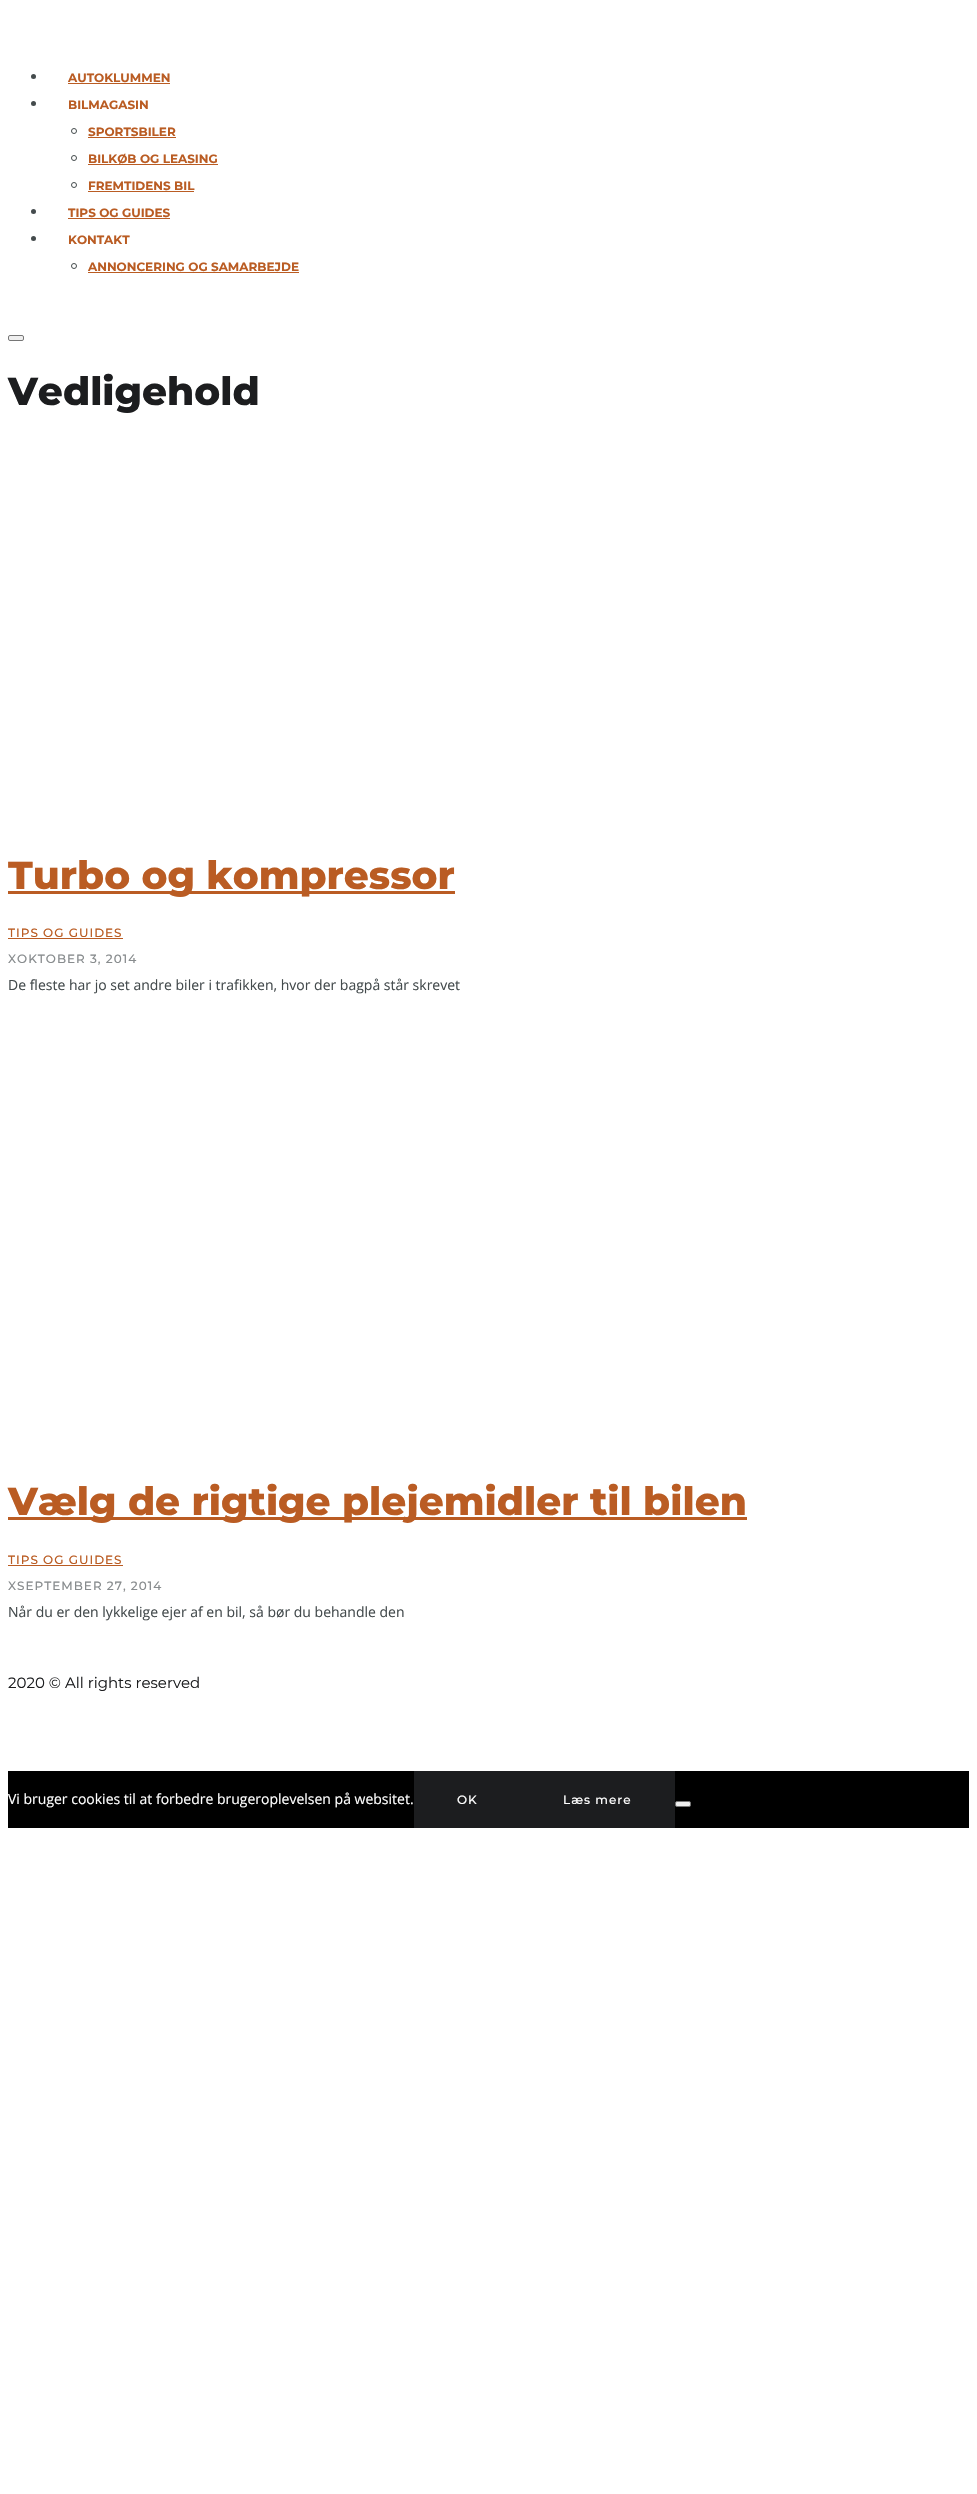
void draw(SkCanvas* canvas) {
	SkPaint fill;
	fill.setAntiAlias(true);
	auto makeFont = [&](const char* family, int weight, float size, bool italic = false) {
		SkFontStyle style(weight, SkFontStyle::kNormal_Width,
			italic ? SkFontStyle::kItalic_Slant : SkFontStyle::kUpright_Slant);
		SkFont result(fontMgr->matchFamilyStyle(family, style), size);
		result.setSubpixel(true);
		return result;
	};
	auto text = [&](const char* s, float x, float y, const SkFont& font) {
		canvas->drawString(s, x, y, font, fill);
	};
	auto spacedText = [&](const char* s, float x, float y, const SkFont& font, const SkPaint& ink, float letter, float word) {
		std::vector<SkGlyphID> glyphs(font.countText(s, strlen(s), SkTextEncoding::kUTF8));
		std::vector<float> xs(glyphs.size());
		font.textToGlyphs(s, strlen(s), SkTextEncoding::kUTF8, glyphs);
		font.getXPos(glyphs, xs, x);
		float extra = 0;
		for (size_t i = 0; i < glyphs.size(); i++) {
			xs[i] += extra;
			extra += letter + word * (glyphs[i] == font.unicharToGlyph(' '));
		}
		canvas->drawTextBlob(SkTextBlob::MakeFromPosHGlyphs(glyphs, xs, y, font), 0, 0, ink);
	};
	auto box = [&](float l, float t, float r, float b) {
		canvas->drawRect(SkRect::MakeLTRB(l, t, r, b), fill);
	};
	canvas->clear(0xFFFFFFFF);
	fill.setColor(0xFF444B4D);
	canvas->drawCircle(33.5f, 76.5f, 2.5f, fill);
	fill.setColor(0xFFBA5C23);
	box(68, 83, 170, 84);
	fill.setColor(0xFF444B4D);
	canvas->drawCircle(33.5f, 103.5f, 2.5f, fill);
	fill.setStyle(SkPaint::kStroke_Style);
	fill.setStrokeWidth(1);
	canvas->drawCircle(74, 131, 2.5f, fill);
	fill.setStyle(SkPaint::kFill_Style);
	fill.setColor(0xFFBA5C23);
	box(88, 137, 176, 138);
	fill.setStyle(SkPaint::kStroke_Style);
	fill.setColor(0xFF444B4D);
	canvas->drawCircle(74, 158, 2.5f, fill);
	fill.setStyle(SkPaint::kFill_Style);
	fill.setColor(0xFFBA5C23);
	box(88, 164, 218, 165);
	fill.setStyle(SkPaint::kStroke_Style);
	fill.setColor(0xFF444B4D);
	canvas->drawCircle(74, 185, 2.5f, fill);
	fill.setStyle(SkPaint::kFill_Style);
	fill.setColor(0xFFBA5C23);
	box(88, 191, 194, 192);
	fill.setColor(0xFF444B4D);
	canvas->drawCircle(33.5f, 211.5f, 2.5f, fill);
	fill.setColor(0xFFBA5C23);
	box(68, 218, 170, 219);
	fill.setColor(0xFF444B4D);
	canvas->drawCircle(33.5f, 238.5f, 2.5f, fill);
	fill.setStyle(SkPaint::kStroke_Style);
	canvas->drawCircle(74, 266, 2.5f, fill);
	fill.setStyle(SkPaint::kFill_Style);
	fill.setColor(0xFFBA5C23);
	box(88, 272, 299, 273);
	fill.setColor(0xFFEFEFEF);
	canvas->drawRoundRect(SkRect::MakeLTRB(8.5f, 335.5f, 23.5f, 340.5f), 1.5f, 1.5f, fill);
	fill.setStyle(SkPaint::kStroke_Style);
	fill.setColor(0xFF767676);
	canvas->drawRoundRect(SkRect::MakeLTRB(8.5f, 335.5f, 23.5f, 340.5f), 1.5f, 1.5f, fill);
	fill.setStyle(SkPaint::kFill_Style);
	fill.setColor(0xFFBA5C23);
	box(8, 891, 455, 894);
	box(8, 938, 123, 939);
	box(8, 1517, 747, 1520);
	box(8, 1565, 123, 1566);
	fill.setColor(0xFF000000);
	box(8, 1771, 969, 1828);
	fill.setColor(0xFF1C1D1F);
	box(414, 1771, 675, 1828);
	fill.setColor(0xFFEFEFEF);
	canvas->drawRoundRect(SkRect::MakeLTRB(675.5f, 1801.5f, 690.5f, 1806.5f), 1.5f, 1.5f, fill);
	fill.setStyle(SkPaint::kStroke_Style);
	fill.setColor(0xFF767676);
	canvas->drawRoundRect(SkRect::MakeLTRB(675.5f, 1801.5f, 690.5f, 1806.5f), 1.5f, 1.5f, fill);
	auto font1 = makeFont("Montserrat", 700, 12);
	fill.setStyle(SkPaint::kFill_Style);
	fill.setColor(0xFFBA5C23);
	text("AUTOKLUMMEN", 68, 82, font1);
	text("BILMAGASIN", 68, 109, font1);
	text("SPORTSBILER", 88, 136, font1);
	text("BILKØB OG LEASING", 88, 163, font1);
	text("FREMTIDENS BIL", 88, 190, font1);
	text("TIPS OG GUIDES", 68, 217, font1);
	text("KONTAKT", 68, 244, font1);
	text("ANNONCERING OG SAMARBEJDE", 88, 271, font1);
	auto font2 = makeFont("Montserrat", 800, 39);
	fill.setColor(0xFF1C1D1F);
	text("Vedligehold", 8, 405, font2);
	fill.setColor(0xFFBA5C23);
	text("Turbo og kompressor", 8, 889, font2);
	auto font3 = makeFont("Montserrat", 500, 12);
	spacedText("TIPS OG GUIDES", 8, 937, font3, fill, 1, 0);
	fill.setColor(0xFF888C8E);
	spacedText("XOKTOBER 3, 2014", 8, 963, font3, fill, 1, 0);
	auto font4 = makeFont("Open Sans", 400, 14);
	fill.setColor(0xFF444B4D);
	text("De fleste har jo set andre biler i trafikken, hvor der bagpå står skrevet", 8, 990, font4);
	fill.setColor(0xFFBA5C23);
	text("Vælg de rigtige plejemidler til bilen", 8, 1515, font2);
	spacedText("TIPS OG GUIDES", 8, 1564, font3, fill, 1, 0);
	fill.setColor(0xFF888C8E);
	spacedText("XSEPTEMBER 27, 2014", 8, 1590, font3, fill, 1, 0);
	fill.setColor(0xFF444B4D);
	text("Når du er den lykkelige ejer af en bil, så bør du behandle den", 8, 1617, font4);
	auto font5 = makeFont("Montserrat", 400, 15);
	fill.setColor(0xFF1C1D1F);
	text("2020 © All rights reserved", 8, 1688, font5);
	fill.setColor(0xFFFFFFFF);
	text("Vi bruger cookies til at forbedre brugeroplevelsen på websitet.", 8, 1804, font4);
	spacedText("OK", 457, 1804, font3, fill, 1, 0);
	spacedText("Læs mere", 563, 1804, font3, fill, 1, 0);
}
